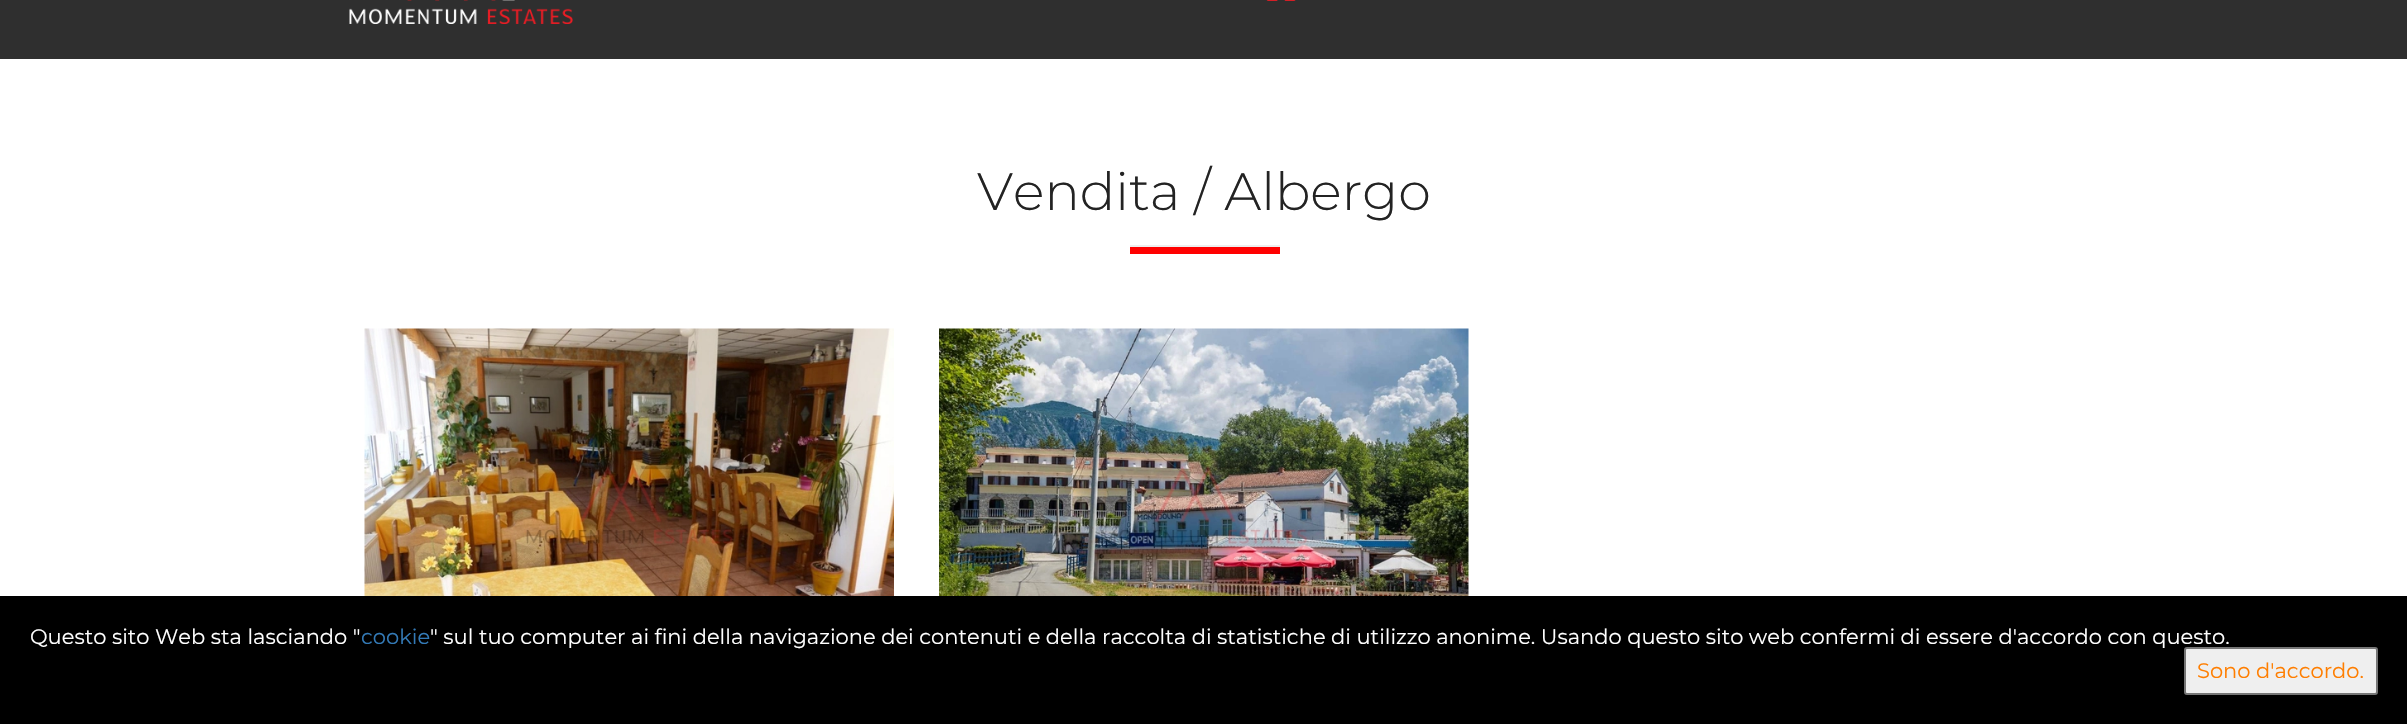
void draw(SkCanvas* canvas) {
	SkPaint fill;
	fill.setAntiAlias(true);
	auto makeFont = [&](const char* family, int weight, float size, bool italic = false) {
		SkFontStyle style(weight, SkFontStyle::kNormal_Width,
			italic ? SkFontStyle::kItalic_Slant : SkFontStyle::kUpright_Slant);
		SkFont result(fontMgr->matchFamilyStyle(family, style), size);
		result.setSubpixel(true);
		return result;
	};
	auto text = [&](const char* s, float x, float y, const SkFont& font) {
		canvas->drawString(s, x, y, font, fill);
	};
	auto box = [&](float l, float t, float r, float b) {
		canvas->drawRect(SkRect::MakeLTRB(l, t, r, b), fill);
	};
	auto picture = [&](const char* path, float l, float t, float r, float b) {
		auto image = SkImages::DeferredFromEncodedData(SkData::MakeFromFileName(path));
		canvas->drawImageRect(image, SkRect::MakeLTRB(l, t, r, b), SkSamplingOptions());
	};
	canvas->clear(0xFFFFFFFF);
	fill.setColor(0xFF2F2F2F);
	box(0, 0, 2407, 59);
	picture("image0.png", 349, 0, 573, 24);
	picture("image1.png", 1266, 0, 1296, 1);
	fill.setColor(0xFFFF0000);
	box(1130, 247, 1280, 254);
	fill.setColor(0xFFEEEEEE);
	box(1130, 245, 1280, 247);
	picture("image2.png", 364, 328, 894, 596);
	picture("image3.png", 939, 328, 1469, 596);
	fill.setColor(0xFF000000);
	box(0, 596, 2407, 724);
	fill.setColor(0xFFEFEFEF);
	canvas->drawRoundRect(SkRect::MakeLTRB(2185, 648, 2377, 694), 2, 2, fill);
	fill.setStyle(SkPaint::kStroke_Style);
	fill.setStrokeWidth(2);
	fill.setColor(0xFF767676);
	canvas->drawRoundRect(SkRect::MakeLTRB(2185, 648, 2377, 694), 2, 2, fill);
	auto font1 = makeFont("Montserrat", 300, 52.5f);
	fill.setStyle(SkPaint::kFill_Style);
	fill.setColor(0xFF232323);
	text("Vendita / Albergo", 977, 210, font1);
	auto font2 = makeFont("Montserrat", 400, 21);
	fill.setColor(0xFFFFFFFF);
	text("Questo sito Web sta lasciando \"", 30, 644, font2);
	fill.setColor(0xFF337AB7);
	text("cookie", 361, 644, font2);
	fill.setColor(0xFFFFFFFF);
	text("\" sul tuo computer ai fini della navigazione dei contenuti e della raccolta di statistiche di utilizzo anonime. Usando questo sito web confermi di essere d'accordo con questo.", 430, 644, font2);
	fill.setColor(0xFFFF7E00);
	text("Sono d'accordo.", 2197, 678, font2);
}
